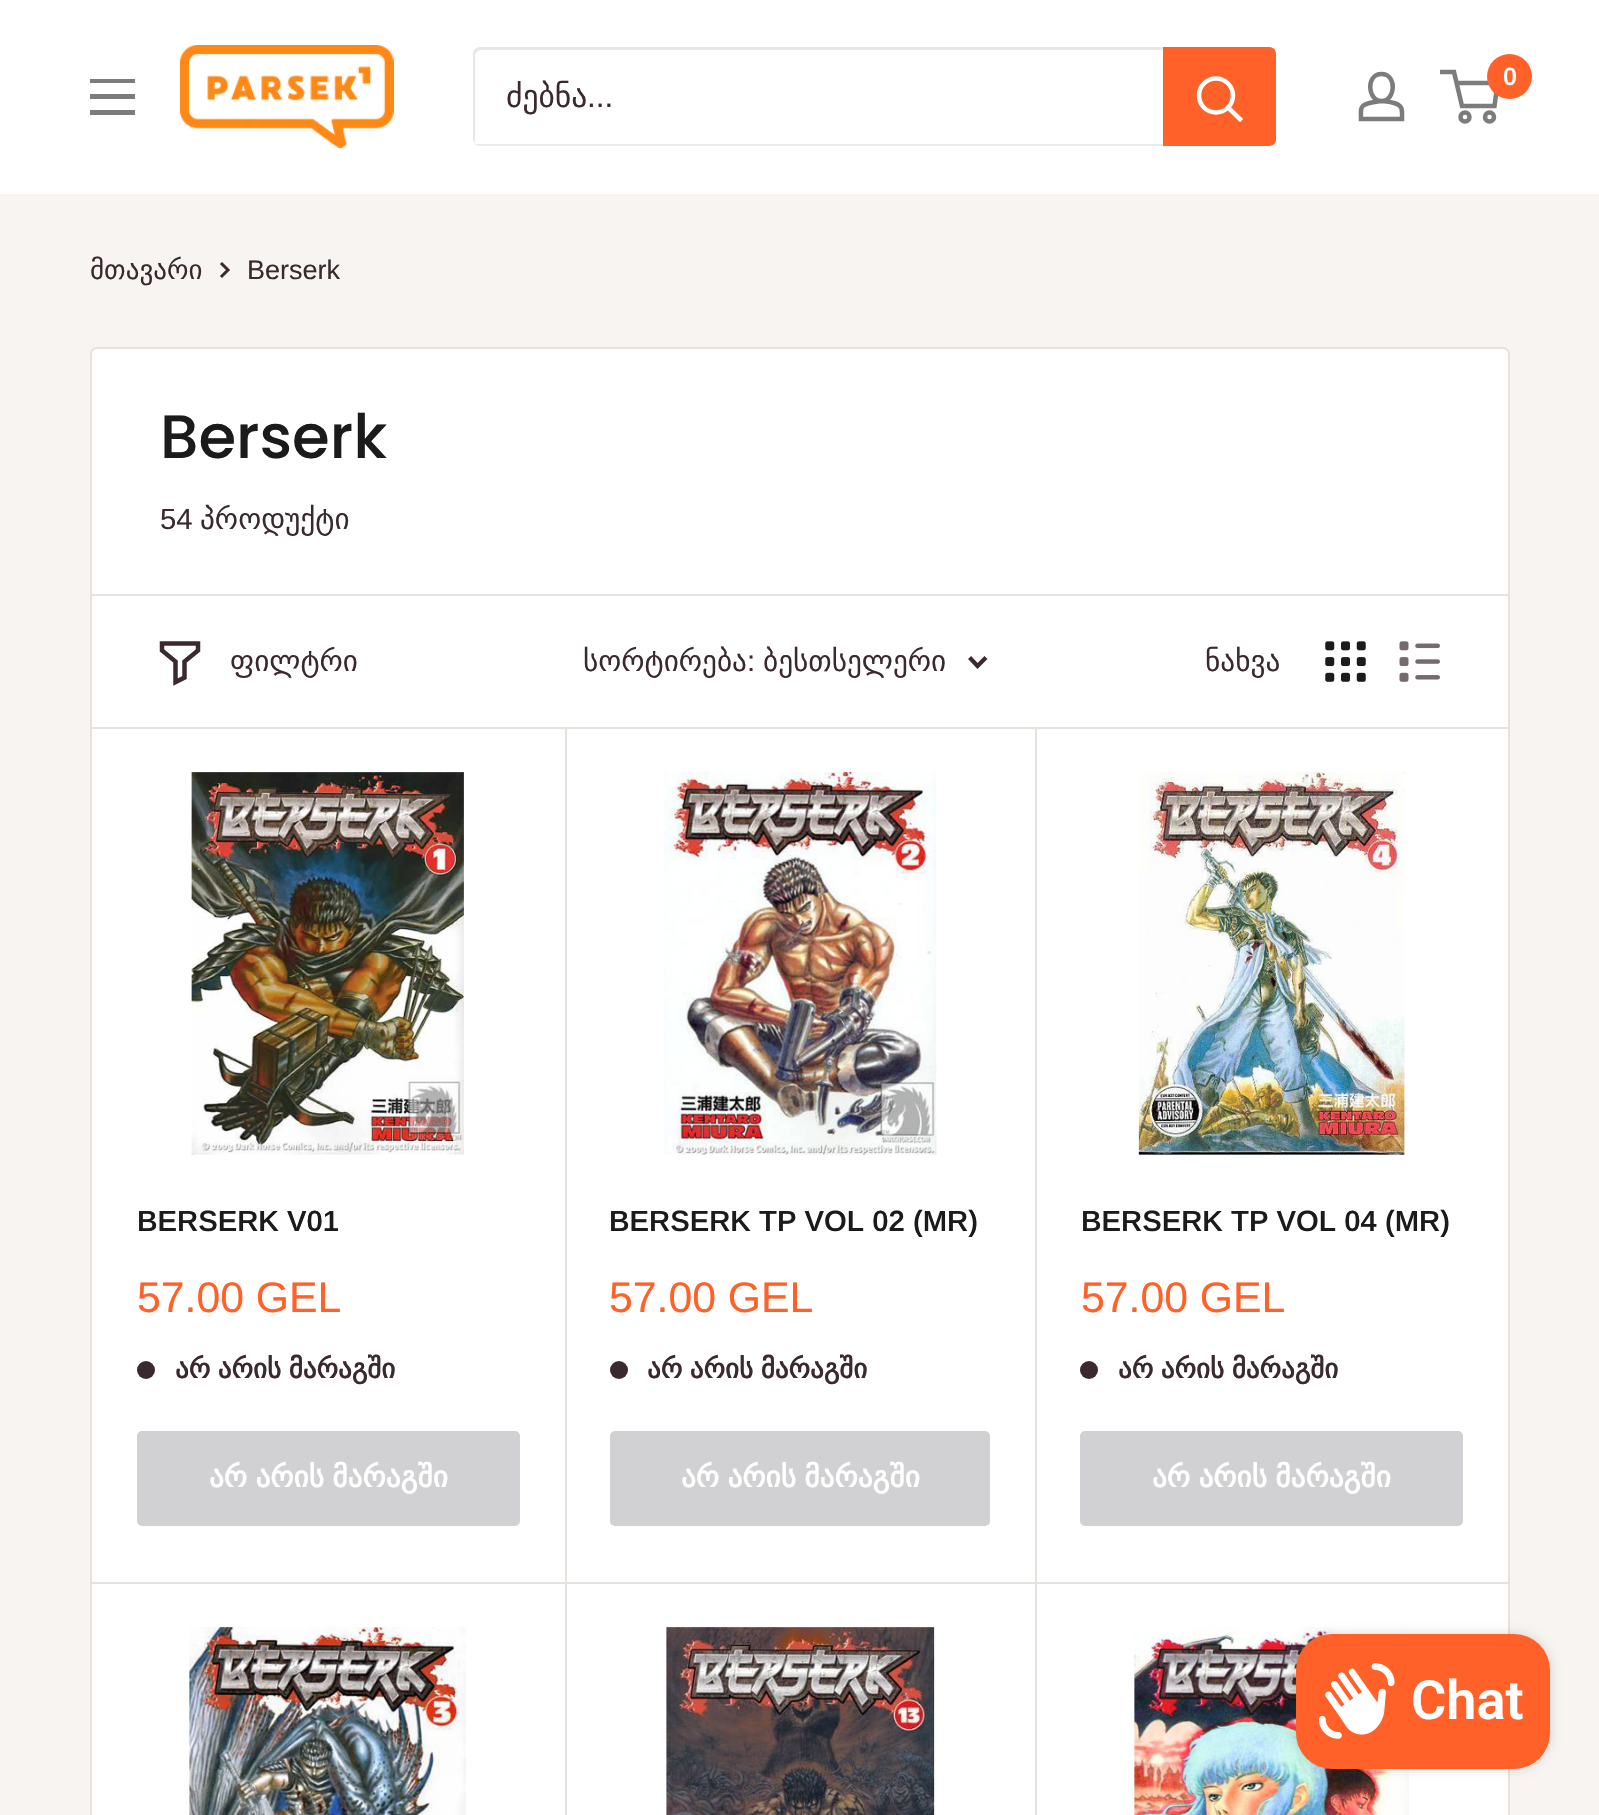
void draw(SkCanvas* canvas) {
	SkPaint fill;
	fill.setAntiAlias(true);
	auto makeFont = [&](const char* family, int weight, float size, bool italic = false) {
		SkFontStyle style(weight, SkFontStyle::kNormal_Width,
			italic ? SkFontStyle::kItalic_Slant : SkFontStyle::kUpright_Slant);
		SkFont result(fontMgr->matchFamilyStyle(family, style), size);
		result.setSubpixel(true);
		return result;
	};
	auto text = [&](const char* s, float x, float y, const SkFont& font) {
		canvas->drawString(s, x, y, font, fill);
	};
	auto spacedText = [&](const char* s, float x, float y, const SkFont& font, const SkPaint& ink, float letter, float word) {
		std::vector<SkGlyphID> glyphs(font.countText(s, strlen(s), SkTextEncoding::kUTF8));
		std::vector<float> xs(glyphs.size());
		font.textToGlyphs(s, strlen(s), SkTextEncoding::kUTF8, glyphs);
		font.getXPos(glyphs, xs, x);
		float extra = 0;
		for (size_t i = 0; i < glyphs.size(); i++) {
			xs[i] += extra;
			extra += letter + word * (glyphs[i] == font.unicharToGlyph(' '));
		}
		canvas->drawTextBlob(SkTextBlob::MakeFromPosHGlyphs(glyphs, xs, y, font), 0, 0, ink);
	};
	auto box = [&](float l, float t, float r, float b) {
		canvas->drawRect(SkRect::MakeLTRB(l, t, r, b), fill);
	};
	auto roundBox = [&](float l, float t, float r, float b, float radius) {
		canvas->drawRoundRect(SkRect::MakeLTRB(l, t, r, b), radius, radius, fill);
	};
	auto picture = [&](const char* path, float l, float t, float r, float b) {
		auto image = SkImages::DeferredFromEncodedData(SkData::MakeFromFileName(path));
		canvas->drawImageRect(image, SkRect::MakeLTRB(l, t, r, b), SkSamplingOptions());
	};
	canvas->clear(0xFFF7F4F2);
	fill.setColor(0xFFFFFFFF);
	box(0, 0, 1599, 194);
	picture("image0.png", 180, 45, 394, 148);
	fill.setStyle(SkPaint::kStroke_Style);
	fill.setStrokeWidth(4.5f);
	fill.setColor(0xFF7C7C7C);
	canvas->drawPath(SkPathBuilder().moveTo(1381.5f, 101).cubicTo(1385.5f, 101, 1390, 102, 1394, 103).cubicTo(1403.5f, 105.5f, 1402, 111, 1402, 119).lineTo(1361, 119).cubicTo(1361, 110, 1359, 105.5f, 1369.5f, 103).cubicTo(1373.5f, 102, 1377.5f, 101.5f, 1381.5f, 101).close().moveTo(1381.5f, 101).cubicTo(1367.5f, 101, 1365.5f, 74, 1381.5f, 74).cubicTo(1397.5f, 74, 1395.5f, 101, 1381.5f, 101).close().detach(), fill);
	canvas->drawCircle(1465, 117, 4.5f, fill);
	canvas->drawCircle(1489.5f, 117, 4.5f, fill);
	canvas->drawPath(SkPathBuilder().moveTo(1456.5f, 83).lineTo(1497.5f, 83).lineTo(1494.5f, 106).lineTo(1462, 106).lineTo(1454, 72).lineTo(1440, 72).detach(), fill);
	fill.setStyle(SkPaint::kFill_Style);
	fill.setColor(0xFFFF6128);
	canvas->drawCircle(1509.5f, 76.5f, 22.5f, fill);
	fill.setColor(0xFF7C7C7C);
	canvas->drawPath(SkPathBuilder(SkPathFillType::kEvenOdd).moveTo(90, 110).lineTo(135, 110).lineTo(135, 115).lineTo(90, 115).close().moveTo(90, 79).lineTo(135, 79).lineTo(135, 83).lineTo(90, 83).close().moveTo(90, 94).lineTo(135, 94).lineTo(135, 99).lineTo(90, 99).close().detach(), fill);
	fill.setColor(0xFFE9E9E9);
	canvas->drawPath(SkPathBuilder().moveTo(475, 144).cubicTo(476, 145, 478, 146, 480, 146).lineTo(1269, 146).cubicTo(1273, 146, 1276, 143, 1276, 139).lineTo(1276, 54).cubicTo(1276, 51, 1275, 49, 1273, 48).cubicTo(1273, 49, 1274, 50, 1274, 52).lineTo(1274, 137).cubicTo(1274, 141, 1270, 144, 1267, 144).close().detach(), fill);
	fill.setColor(0x4DB4B4B4);
	canvas->drawPath(SkPathBuilder().moveTo(482, 50).lineTo(1271, 50).cubicTo(1273, 50, 1274, 51, 1276, 51).cubicTo(1275, 49, 1272, 47, 1269, 47).lineTo(480, 47).cubicTo(476, 47, 473, 50, 473, 54).lineTo(473, 139).cubicTo(473, 141, 474, 143, 476, 145).lineTo(475, 142).lineTo(475, 56).cubicTo(475, 53, 478, 50, 482, 50).close().detach(), fill);
	fill.setColor(0xFFFF6128);
	canvas->drawPath(SkPathBuilder().moveTo(1163, 47).lineTo(1269, 47).cubicTo(1273, 47, 1276, 50, 1276, 54).lineTo(1276, 139).cubicTo(1276, 143, 1273, 146, 1269, 146).lineTo(1163, 146).close().detach(), fill);
	fill.setStyle(SkPaint::kStroke_Style);
	fill.setStrokeCap(SkPaint::kSquare_Cap);
	fill.setColor(0xFFFFFFFF);
	canvas->drawPath(SkPathBuilder().moveTo(1240, 119).lineTo(1228.5f, 108).detach(), fill);
	fill.setStrokeCap(SkPaint::kButt_Cap);
	canvas->drawCircle(1216, 95.5f, 17, fill);
	fill.setStrokeWidth(3);
	fill.setStrokeCap(SkPaint::kSquare_Cap);
	fill.setColor(0xFF3A2A2F);
	canvas->drawPath(SkPathBuilder().moveTo(222, 264).lineTo(228, 270).lineTo(222, 276).detach(), fill);
	fill.setStyle(SkPaint::kFill_Style);
	fill.setColor(0xFFFFFFFF);
	canvas->drawRoundRect(SkRect::MakeLTRB(91, 348, 1509, 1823), 6, 6, fill);
	fill.setStyle(SkPaint::kStroke_Style);
	fill.setStrokeWidth(2);
	fill.setStrokeCap(SkPaint::kButt_Cap);
	fill.setColor(0xFFE7E2DE);
	canvas->drawRoundRect(SkRect::MakeLTRB(91, 348, 1509, 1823), 6, 6, fill);
	fill.setStyle(SkPaint::kFill_Style);
	canvas->drawPath(SkPathBuilder().moveTo(92, 594).lineTo(92, 725).lineTo(92, 596).lineTo(1508, 596).lineTo(1508, 725).lineTo(1508, 594).close().detach(), fill);
	canvas->drawPath(SkPathBuilder().moveTo(95, 1582).lineTo(567, 1582).lineTo(567, 727).lineTo(565, 727).lineTo(565, 1582).close().detach(), fill);
	canvas->drawPath(SkPathBuilder().moveTo(567, 1582).lineTo(1037, 1582).lineTo(1037, 727).lineTo(1035, 727).lineTo(1035, 1582).close().detach(), fill);
	canvas->drawPath(SkPathBuilder().moveTo(92, 599).lineTo(92, 729).lineTo(1508, 729).lineTo(1508, 599).lineTo(1508, 727).lineTo(92, 727).close().detach(), fill);
	fill.setStyle(SkPaint::kStroke_Style);
	fill.setStrokeWidth(4.5f);
	fill.setStrokeCap(SkPaint::kSquare_Cap);
	fill.setColor(0xFF3A2A2F);
	canvas->drawPath(SkPathBuilder().moveTo(198, 650.5f).lineTo(184.5f, 661.5f).lineTo(184.5f, 677.5f).lineTo(175.5f, 682).lineTo(175.5f, 661.5f).lineTo(162, 650.5f).lineTo(162, 643.5f).lineTo(198, 643.5f).close().detach(), fill);
	fill.setStrokeWidth(4.2f);
	canvas->drawPath(SkPathBuilder().moveTo(984.5f, 659).lineTo(977.5f, 666).lineTo(971, 659).detach(), fill);
	picture("image1.png", 1325, 641, 1366, 682);
	picture("image2.png", 1399, 641, 1440, 682);
	fill.setStyle(SkPaint::kFill_Style);
	fill.setColor(0xFFE7E2DE);
	canvas->drawPath(SkPathBuilder().moveTo(92, 734).lineTo(92, 1584).lineTo(565, 1584).lineTo(565, 729).lineTo(565, 1582).lineTo(92, 1582).lineTo(92, 732).close().detach(), fill);
	picture("image3.png", 191, 772, 464, 1155);
	fill.setColor(0xFF3A2A2F);
	canvas->drawCircle(146, 1370, 9, fill);
	fill.setColor(0xFFD1D1D4);
	canvas->drawRoundRect(SkRect::MakeLTRB(138, 1432, 519, 1525), 4, 4, fill);
	fill.setStyle(SkPaint::kStroke_Style);
	fill.setStrokeWidth(2);
	fill.setStrokeCap(SkPaint::kButt_Cap);
	canvas->drawRoundRect(SkRect::MakeLTRB(138, 1432, 519, 1525), 4, 4, fill);
	fill.setStyle(SkPaint::kFill_Style);
	fill.setColor(0xFFE7E2DE);
	box(565, 1582, 1035, 1584);
	picture("image4.png", 664, 772, 937, 1155);
	fill.setColor(0xFF3A2A2F);
	canvas->drawCircle(619, 1370, 9, fill);
	fill.setColor(0xFFD1D1D4);
	canvas->drawRoundRect(SkRect::MakeLTRB(611, 1432, 989, 1525), 4, 4, fill);
	fill.setStyle(SkPaint::kStroke_Style);
	canvas->drawRoundRect(SkRect::MakeLTRB(611, 1432, 989, 1525), 4, 4, fill);
	picture("image5.png", 1138, 772, 1405, 1155);
	fill.setStyle(SkPaint::kFill_Style);
	fill.setColor(0xFF3A2A2F);
	canvas->drawCircle(1089, 1370, 9, fill);
	fill.setColor(0xFFD1D1D4);
	canvas->drawRoundRect(SkRect::MakeLTRB(1081, 1432, 1462, 1525), 4, 4, fill);
	fill.setStyle(SkPaint::kStroke_Style);
	canvas->drawRoundRect(SkRect::MakeLTRB(1081, 1432, 1462, 1525), 4, 4, fill);
	fill.setStyle(SkPaint::kFill_Style);
	fill.setColor(0xFFE7E2DE);
	canvas->drawPath(SkPathBuilder().moveTo(1035, 1582).lineTo(1035, 1584).lineTo(1508, 1584).lineTo(1508, 734).lineTo(1508, 731).lineTo(1508, 1582).close().detach(), fill);
	picture("image6.png", 189, 1627, 466, 1815);
	canvas->drawPath(SkPathBuilder().moveTo(95, 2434).lineTo(95, 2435).lineTo(567, 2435).lineTo(567, 1582).lineTo(565, 1582).lineTo(565, 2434).close().detach(), fill);
	picture("image7.png", 666, 1627, 935, 1815);
	canvas->drawPath(SkPathBuilder().moveTo(567, 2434).lineTo(567, 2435).lineTo(1037, 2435).lineTo(1037, 1582).lineTo(1035, 1582).lineTo(1035, 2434).close().detach(), fill);
	picture("image8.png", 1134, 1627, 1409, 1815);
	fill.setColor(0x26000000);
	fill.setMaskFilter(SkMaskFilter::MakeBlur(kNormal_SkBlurStyle, 5.5f));
	canvas->drawRoundRect(SkRect::MakeLTRB(1296, 1634, 1550, 1769), 36, 36, fill);
	fill.setMaskFilter(nullptr);
	fill.setColor(0xFFFF6128);
	roundBox(1296, 1634, 1550, 1769, 36);
	picture("image9.png", 1318, 1663, 1395, 1739);
	auto font1 = makeFont("Arimo", 600, 25);
	fill.setColor(0xFFFFFFFF);
	text("0", 1503, 85, font1);
	auto font2 = makeFont("DejaVu Sans", 400, 31.5f);
	fill.setColor(0xFF3A2A2F);
	text("ძებნა", 506, 107, font2);
	auto font3 = makeFont("Arimo", 400, 31.5f);
	text("...", 587, 107, font3);
	auto font4 = makeFont("DejaVu Sans", 400, 27);
	text("მთავარი", 90, 279, font4);
	auto font5 = makeFont("Arimo", 400, 27);
	text("Berserk", 247, 279, font5);
	auto font6 = makeFont("Poppins", 500, 61);
	fill.setColor(0xFF1C1B1B);
	text("Berserk", 160, 458, font6);
	auto font7 = makeFont("Arimo", 400, 29.25f);
	fill.setColor(0xFF3A2A2F);
	text("54", 160, 529, font7);
	auto font8 = makeFont("DejaVu Sans", 400, 29.25f);
	text("პროდუქტი", 200, 529, font8);
	text("ფილტრი", 230, 671, font8);
	text("სორტირება", 583, 671, font8);
	text(":", 747, 671, font7);
	text("ბესთსელერი", 763, 671, font8);
	text("ნახვა", 1205, 671, font8);
	auto font9 = makeFont("Arimo", 600, 29.25f);
	fill.setColor(0xFF1C1B1B);
	text("BERSERK V01", 137, 1231, font9);
	auto font10 = makeFont("Arimo", 400, 42.75f);
	fill.setColor(0xFFFF6128);
	text("57.00 GEL", 137, 1312, font10);
	auto font11 = makeFont("DejaVu Sans", 700, 27);
	fill.setColor(0xFF3A2A2F);
	spacedText("არ არის მარაგში", 175, 1378, font11, fill, 0, -1);
	auto font12 = makeFont("DejaVu Sans", 700, 29.25f);
	fill.setColor(0xFFFFFFFF);
	spacedText("არ არის მარაგში", 209, 1487, font12, fill, 0, -1);
	fill.setColor(0xFF1C1B1B);
	text("BERSERK TP VOL 02 (MR)", 609, 1231, font9);
	fill.setColor(0xFFFF6128);
	text("57.00 GEL", 609, 1312, font10);
	fill.setColor(0xFF3A2A2F);
	spacedText("არ არის მარაგში", 647, 1378, font11, fill, 0, -1);
	fill.setColor(0xFFFFFFFF);
	spacedText("არ არის მარაგში", 681, 1487, font12, fill, 0, -1);
	fill.setColor(0xFF1C1B1B);
	text("BERSERK TP VOL 04 (MR)", 1081, 1231, font9);
	fill.setColor(0xFFFF6128);
	text("57.00 GEL", 1081, 1312, font10);
	fill.setColor(0xFF3A2A2F);
	spacedText("არ არის მარაგში", 1118, 1378, font11, fill, 0, -1);
	fill.setColor(0xFFFFFFFF);
	spacedText("არ არის მარაგში", 1152, 1487, font12, fill, 0, -1);
	auto font13 = makeFont("Roboto", 600, 54);
	text("Chat", 1411, 1719, font13);
}
